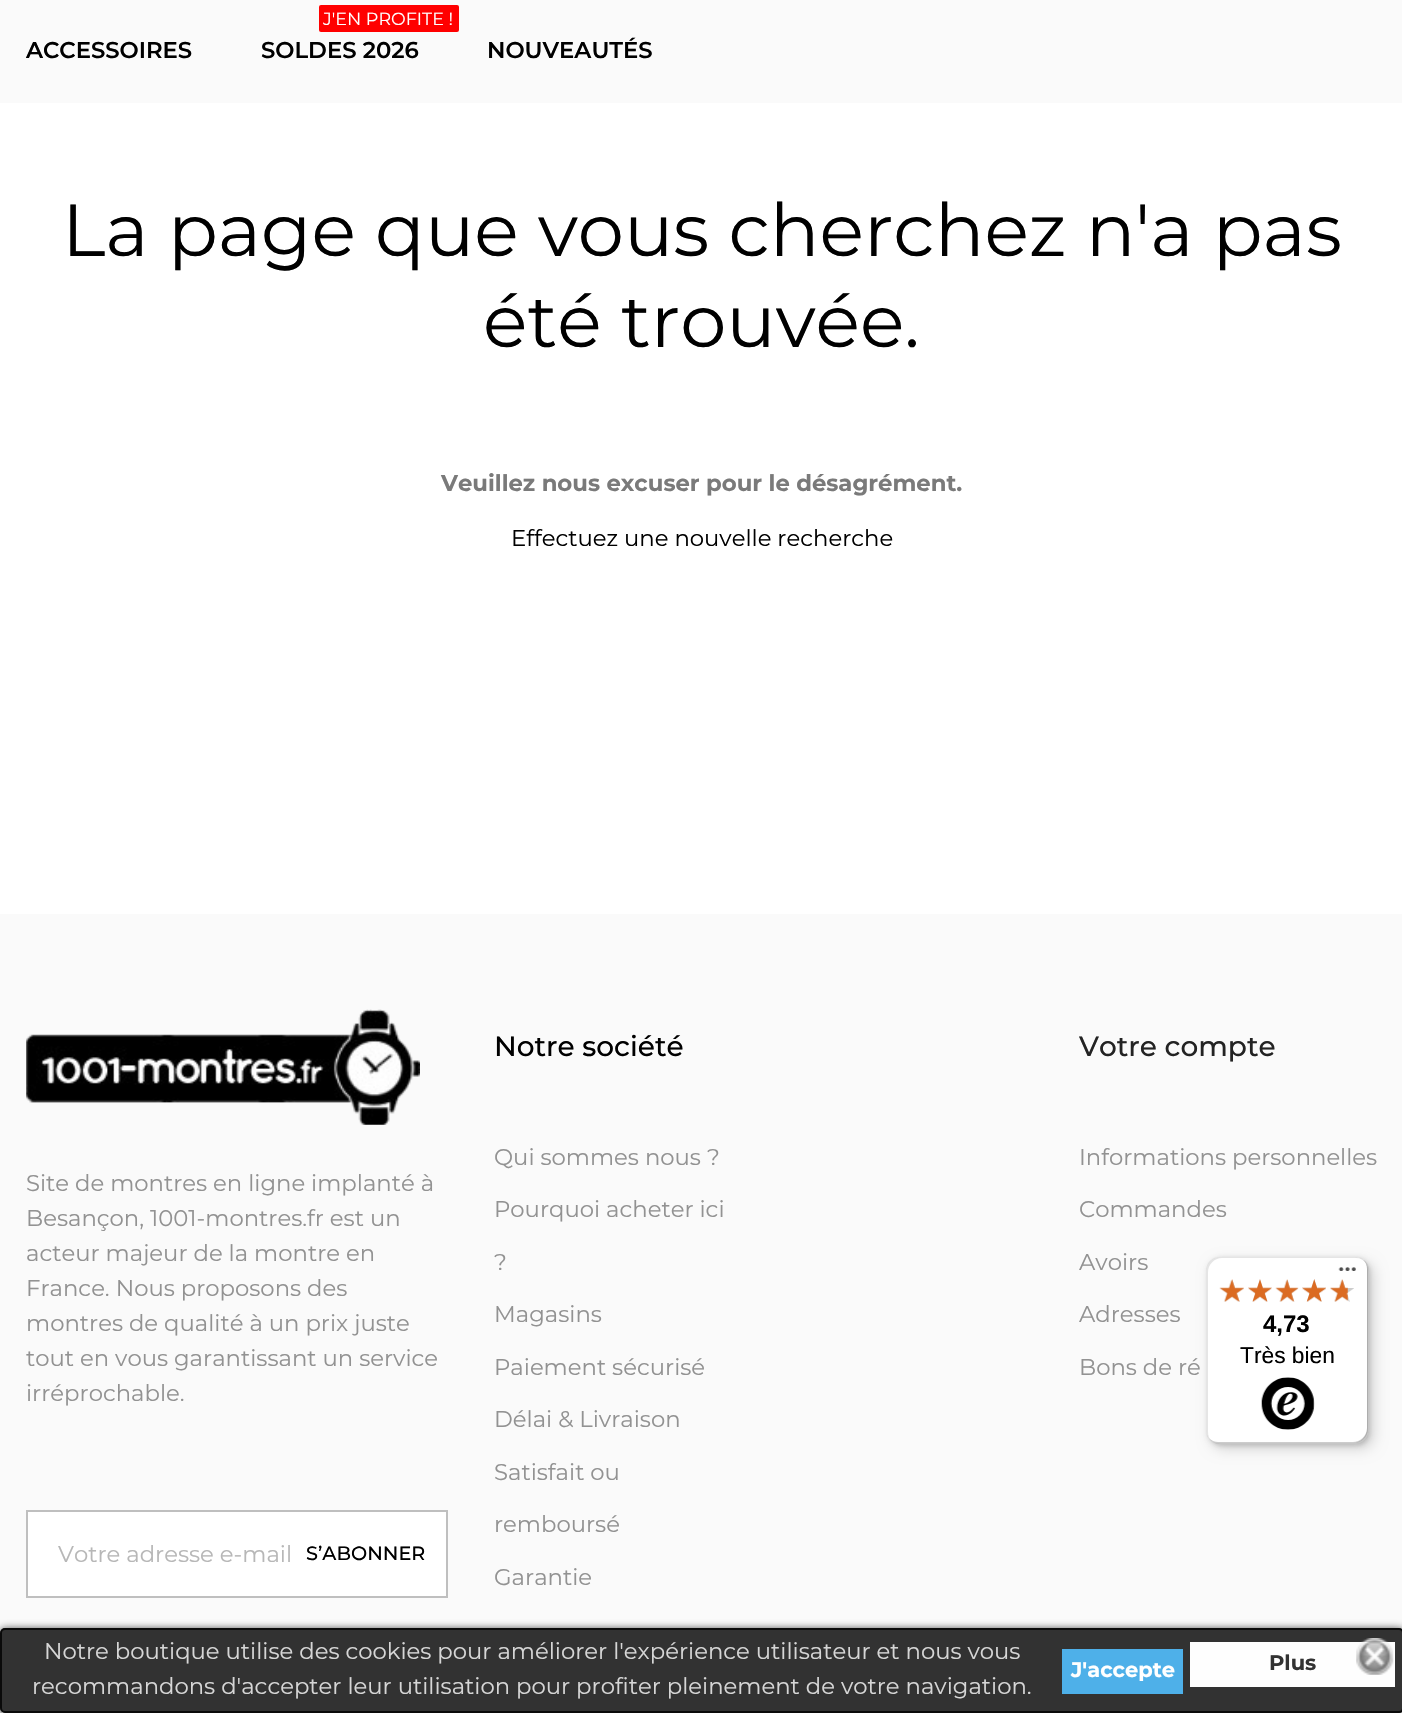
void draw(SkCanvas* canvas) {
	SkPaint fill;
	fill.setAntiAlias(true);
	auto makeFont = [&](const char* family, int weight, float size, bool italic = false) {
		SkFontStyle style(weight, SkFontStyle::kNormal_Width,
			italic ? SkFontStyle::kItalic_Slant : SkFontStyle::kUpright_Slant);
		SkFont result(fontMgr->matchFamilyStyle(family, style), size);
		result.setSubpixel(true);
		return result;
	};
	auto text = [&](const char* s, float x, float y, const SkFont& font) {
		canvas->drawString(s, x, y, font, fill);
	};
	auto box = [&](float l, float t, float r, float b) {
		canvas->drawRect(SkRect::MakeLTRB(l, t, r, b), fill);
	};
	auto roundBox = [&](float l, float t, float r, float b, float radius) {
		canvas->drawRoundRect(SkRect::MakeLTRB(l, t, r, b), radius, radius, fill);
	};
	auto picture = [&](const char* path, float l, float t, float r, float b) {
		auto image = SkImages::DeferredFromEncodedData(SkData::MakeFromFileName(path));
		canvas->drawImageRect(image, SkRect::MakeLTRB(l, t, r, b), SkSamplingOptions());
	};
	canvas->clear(0xFFFFFFFF);
	fill.setColor(0xFFFAFAFA);
	box(0, 0, 1402, 103);
	fill.setColor(0xFFFF0000);
	roundBox(319, 5, 459, 32, 2);
	fill.setColor(0xFFFAFAFA);
	box(0, 914, 1402, 1713);
	canvas->save();
	canvas->clipPath(SkPathBuilder(SkPathFillType::kEvenOdd).moveTo(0, 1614).lineTo(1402, 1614).lineTo(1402, 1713).lineTo(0, 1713).close().moveTo(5, 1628).lineTo(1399, 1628).cubicTo(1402, 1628, 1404, 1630, 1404, 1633).lineTo(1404, 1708).cubicTo(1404, 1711, 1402, 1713, 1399, 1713).lineTo(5, 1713).cubicTo(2, 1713, 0, 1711, 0, 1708).lineTo(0, 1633).cubicTo(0, 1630, 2, 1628, 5, 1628).close().detach(), true);
	fill.setColor(0xCC000000);
	fill.setMaskFilter(SkMaskFilter::MakeBlur(kNormal_SkBlurStyle, 4.5f));
	canvas->drawRoundRect(SkRect::MakeLTRB(0, 1629, 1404, 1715), 5, 5, fill);
	fill.setMaskFilter(nullptr);
	canvas->restore();
	roundBox(0, 1628, 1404, 1713, 5);
	fill.setStyle(SkPaint::kStroke_Style);
	fill.setStrokeWidth(2);
	canvas->drawRoundRect(SkRect::MakeLTRB(1, 1629, 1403, 1712), 4, 4, fill);
	fill.setStyle(SkPaint::kFill_Style);
	fill.setColor(0xFF4EB0E9);
	box(1062, 1649, 1183, 1694);
	fill.setColor(0xFFFEFEFE);
	box(1190, 1642, 1395, 1687);
	picture("image0.png", 1356, 1638, 1394, 1675);
	picture("image1.png", 26, 1009, 420, 1125);
	fill.setColor(0xFFFFFFFF);
	canvas->drawRect(SkRect::MakeLTRB(27, 1511, 447, 1597), fill);
	fill.setStyle(SkPaint::kStroke_Style);
	fill.setColor(0xFFBFBFBF);
	canvas->drawRect(SkRect::MakeLTRB(27, 1511, 447, 1597), fill);
	fill.setStyle(SkPaint::kFill_Style);
	fill.setColor(0x26000000);
	fill.setMaskFilter(SkMaskFilter::MakeBlur(kNormal_SkBlurStyle, 7));
	canvas->drawRoundRect(SkRect::MakeLTRB(1211, 1262, 1374, 1449), 14, 14, fill);
	fill.setMaskFilter(nullptr);
	fill.setMaskFilter(SkMaskFilter::MakeBlur(kNormal_SkBlurStyle, 2));
	canvas->drawRoundRect(SkRect::MakeLTRB(1208, 1258, 1370, 1446), 14, 14, fill);
	fill.setMaskFilter(nullptr);
	fill.setColor(0xFFFFFFFF);
	roundBox(1206, 1257, 1369, 1444, 14);
	fill.setColor(0x1A000000);
	canvas->drawPath(SkPathBuilder().moveTo(1222, 1258).lineTo(1356, 1258).cubicTo(1360, 1258, 1364, 1260, 1366, 1263).cubicTo(1364, 1259, 1360, 1257, 1355, 1257).lineTo(1220, 1257).cubicTo(1212, 1257, 1206, 1263, 1206, 1271).lineTo(1206, 1430).cubicTo(1206, 1435, 1208, 1439, 1212, 1441).cubicTo(1209, 1439, 1208, 1435, 1208, 1432).lineTo(1208, 1272).cubicTo(1208, 1265, 1214, 1258, 1222, 1258).close().detach(), fill);
	fill.setColor(0x33000000);
	canvas->drawPath(SkPathBuilder().moveTo(1210, 1439).cubicTo(1212, 1442, 1216, 1444, 1220, 1444).lineTo(1355, 1444).cubicTo(1363, 1444, 1369, 1438, 1369, 1430).lineTo(1369, 1271).cubicTo(1369, 1266, 1367, 1262, 1363, 1260).cubicTo(1366, 1262, 1367, 1265, 1367, 1269).lineTo(1367, 1428).cubicTo(1367, 1436, 1360, 1442, 1353, 1442).lineTo(1218, 1442).cubicTo(1215, 1442, 1212, 1441, 1210, 1439).close().detach(), fill);
	fill.setColor(0x33323232);
	canvas->drawPath(SkPathBuilder().moveTo(1209, 1438).cubicTo(1211, 1442, 1215, 1444, 1220, 1444).lineTo(1355, 1444).cubicTo(1363, 1444, 1369, 1438, 1369, 1430).lineTo(1369, 1271).cubicTo(1369, 1266, 1367, 1262, 1363, 1260).cubicTo(1366, 1262, 1367, 1266, 1367, 1269).lineTo(1367, 1429).cubicTo(1367, 1436, 1361, 1443, 1353, 1443).lineTo(1219, 1443).cubicTo(1215, 1443, 1211, 1441, 1209, 1438).close().detach(), fill);
	fill.setColor(0x4DFFFFFF);
	canvas->drawPath(SkPathBuilder().moveTo(1211, 1440).cubicTo(1213, 1443, 1216, 1444, 1220, 1444).lineTo(1355, 1444).cubicTo(1363, 1444, 1369, 1438, 1369, 1430).lineTo(1369, 1271).cubicTo(1369, 1266, 1367, 1262, 1363, 1260).cubicTo(1366, 1262, 1368, 1266, 1368, 1270).lineTo(1368, 1429).cubicTo(1368, 1437, 1361, 1443, 1354, 1443).lineTo(1219, 1443).cubicTo(1216, 1443, 1213, 1442, 1211, 1440).close().detach(), fill);
	picture("image2.png", 1338, 1267, 1356, 1271);
	picture("image3.png", 1219, 1280, 1244, 1302);
	picture("image4.png", 1248, 1279, 1272, 1302);
	picture("image5.png", 1275, 1280, 1299, 1302);
	picture("image6.png", 1302, 1279, 1326, 1302);
	picture("image7.png", 1330, 1280, 1354, 1302);
	picture("image8.png", 1219, 1279, 1244, 1302);
	picture("image9.png", 1248, 1279, 1272, 1302);
	picture("image10.png", 1275, 1279, 1299, 1302);
	picture("image11.png", 1302, 1279, 1326, 1302);
	picture("image12.png", 1330, 1279, 1348, 1302);
	picture("image13.png", 1261, 1377, 1315, 1430);
	auto font1 = makeFont("Montserrat", 600, 22.75f);
	fill.setColor(0xFF000000);
	text("ACCESSOIRES", 26, 58, font1);
	auto font2 = makeFont("Montserrat", 400, 17.5f);
	fill.setColor(0xFFFFFFFF);
	text("J'EN PROFITE !", 323, 25, font2);
	fill.setColor(0xFF000000);
	text("SOLDES 2026", 261, 58, font1);
	text("NOUVEAUTÉS", 487, 58, font1);
	auto font3 = makeFont("Montserrat", 400, 22.75f);
	fill.setColor(0xFFD6D6D6);
	text("Notre boutique utilise des cookies pour améliorer l'expérience utilisateur et nous vous", 44, 1659, font3);
	text("recommandons d'accepter leur utilisation pour profiter pleinement de votre navigation.", 32, 1694, font3);
	auto font4 = makeFont("Montserrat", 700, 21);
	fill.setColor(0xFFFFFFFF);
	text("J'accepte", 1071, 1677, font4);
	fill.setColor(0xFF323232);
	text("Plus", 1269, 1670, font4);
	auto font5 = makeFont("Montserrat", 400, 73.5f);
	fill.setColor(0xFF000000);
	text("La page que vous cherchez n'a pas", 62, 256, font5);
	text("été trouvée.", 483, 347, font5);
	auto font6 = makeFont("Montserrat", 700, 22.75f);
	fill.setColor(0xFF7A7A7A);
	text("Veuillez nous excuser pour le désagrément.", 441, 491, font6);
	fill.setColor(0xFF000000);
	text("Effectuez une nouvelle recherche", 511, 546, font3);
	fill.setColor(0xFF929292);
	text("Site de montres en ligne implanté à", 26, 1191, font3);
	text("Besançon, 1001-montres.fr est un", 26, 1226, font3);
	text("acteur majeur de la montre en", 26, 1261, font3);
	text("France. Nous proposons des", 26, 1296, font3);
	text("montres de qualité à un prix juste", 26, 1331, font3);
	text("tout en vous garantissant un service", 26, 1366, font3);
	text("irréprochable.", 26, 1401, font3);
	fill.setColor(0xFFB7B7B7);
	text("Votre adresse e-mail", 58, 1562, font3);
	auto font7 = makeFont("Montserrat", 500, 19.25f);
	fill.setColor(0xFF000000);
	text("S’ABONNER", 306, 1560, font7);
	auto font8 = makeFont("Montserrat", 500, 28);
	text("Notre société", 494, 1056, font8);
	fill.setColor(0xFF929292);
	text("Qui sommes nous ?", 494, 1165, font3);
	text("Pourquoi acheter ici", 494, 1217, font3);
	text("?", 494, 1270, font3);
	text("Magasins", 494, 1322, font3);
	text("Paiement sécurisé", 494, 1375, font3);
	text("Délai & Livraison", 494, 1427, font3);
	text("Satisfait ou", 494, 1480, font3);
	text("remboursé", 494, 1532, font3);
	text("Garantie", 494, 1585, font3);
	fill.setColor(0xFF232323);
	text("Votre compte", 1079, 1056, font8);
	fill.setColor(0xFF929292);
	text("Informations personnelles", 1079, 1165, font3);
	text("Commandes", 1079, 1217, font3);
	text("Avoirs", 1079, 1270, font3);
	text("Adresses", 1079, 1322, font3);
	text("Bons de ré", 1079, 1375, font3);
	auto font9 = makeFont("Liberation Sans", 700, 24);
	fill.setColor(0xFF000000);
	text("4,73", 1263, 1332, font9);
	auto font10 = makeFont("Liberation Sans", 400, 22.75f);
	text("Très bien", 1240, 1363, font10);
}
